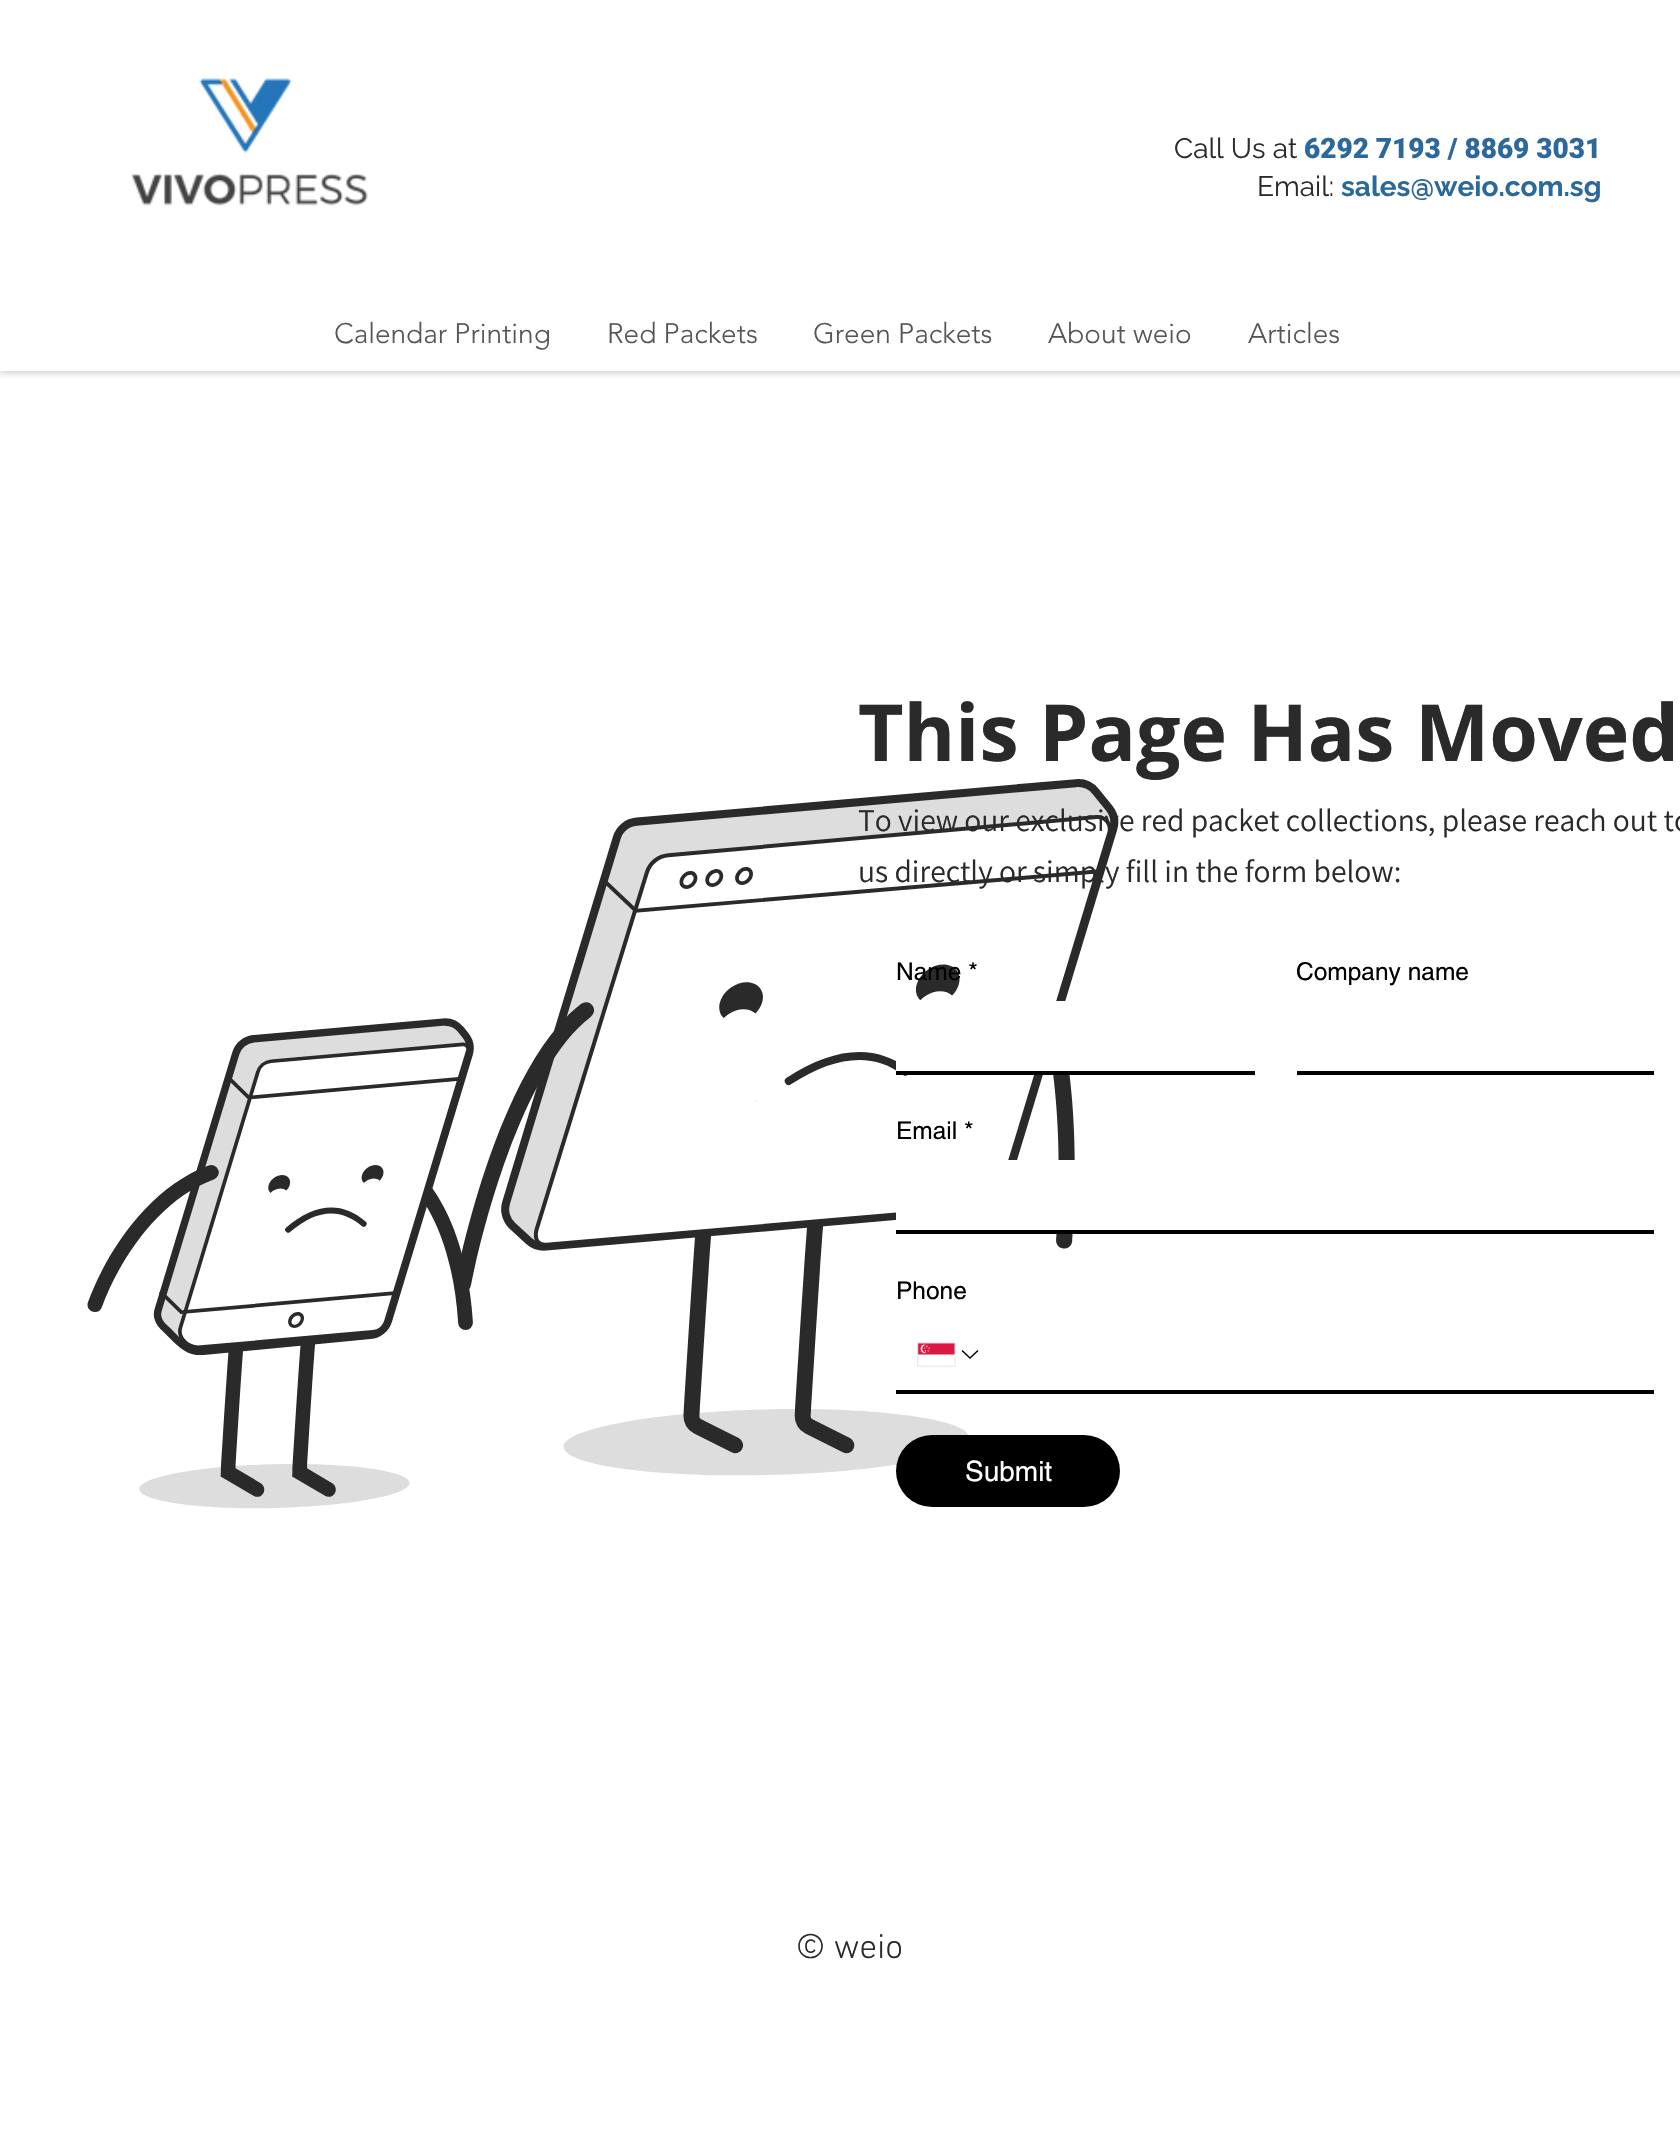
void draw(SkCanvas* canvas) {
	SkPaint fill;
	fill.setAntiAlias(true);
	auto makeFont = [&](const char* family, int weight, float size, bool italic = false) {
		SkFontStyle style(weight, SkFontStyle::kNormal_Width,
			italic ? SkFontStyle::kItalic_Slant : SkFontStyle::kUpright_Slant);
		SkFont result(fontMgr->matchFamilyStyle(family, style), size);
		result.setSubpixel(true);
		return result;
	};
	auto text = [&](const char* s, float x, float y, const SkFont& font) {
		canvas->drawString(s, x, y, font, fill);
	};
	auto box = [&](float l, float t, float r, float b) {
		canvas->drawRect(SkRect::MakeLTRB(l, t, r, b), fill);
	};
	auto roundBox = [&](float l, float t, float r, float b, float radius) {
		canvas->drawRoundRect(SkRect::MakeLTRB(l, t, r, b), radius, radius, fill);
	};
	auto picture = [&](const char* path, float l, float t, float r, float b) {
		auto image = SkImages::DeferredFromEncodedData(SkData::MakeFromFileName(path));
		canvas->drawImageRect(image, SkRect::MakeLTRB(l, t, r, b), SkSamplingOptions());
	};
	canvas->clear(0xFFFFFFFF);
	canvas->save();
	canvas->clipRect(SkRect::MakeLTRB(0, 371, 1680, 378));
	fill.setColor(0x4D000000);
	fill.setMaskFilter(SkMaskFilter::MakeBlur(kNormal_SkBlurStyle, 4.5f));
	canvas->drawRect(SkRect::MakeLTRB(0, 0, 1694, 371), fill);
	fill.setMaskFilter(nullptr);
	canvas->restore();
	picture("image0.png", 131, 78, 368, 206);
	picture("image1.png", 87, 779, 1119, 1509);
	fill.setColor(0xFFFFFFFF);
	box(896, 1001, 1069, 1071);
	fill.setColor(0xFF000000);
	box(896, 1071, 1255, 1075);
	box(1297, 1071, 1654, 1075);
	fill.setColor(0xFFFFFFFF);
	box(896, 1160, 1075, 1230);
	fill.setColor(0xFF000000);
	box(896, 1230, 1654, 1234);
	box(896, 1390, 1654, 1394);
	picture("image2.png", 917, 1342, 956, 1367);
	canvas->drawPath(SkPathBuilder(SkPathFillType::kEvenOdd).moveTo(977.5f, 1350).lineTo(978.5f, 1351).lineTo(970, 1359).lineTo(961.5f, 1351).lineTo(962.5f, 1350).lineTo(970, 1357).close().detach(), fill);
	roundBox(896, 1435, 1120, 1507, 36);
	auto font1 = makeFont("Raleway", 400, 28);
	fill.setColor(0xFF2A2A2A);
	text("Call Us at", 1174, 158, font1);
	auto font2 = makeFont("Roboto", 900, 28);
	fill.setColor(0xFF2B689C);
	text("6292 7193 / 8869 3031", 1304, 158, font2);
	fill.setColor(0xFF2A2A2A);
	text("Email:", 1257, 196, font1);
	auto font3 = makeFont("Raleway", 700, 28);
	fill.setColor(0xFF2B689C);
	text("sales@weio.com.sg", 1341, 196, font3);
	auto font4 = makeFont("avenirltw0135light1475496", 300, 28);
	fill.setColor(0xFF555555);
	text("Calendar Printing", 334, 343, font4);
	text("Red Packets", 607, 343, font4);
	text("Green Packets", 813, 343, font4);
	text("About weio", 1048, 343, font4);
	text("Articles", 1248, 343, font4);
	auto font5 = makeFont("Open Sans", 700, 78.75f);
	fill.setColor(0xFF2A2A2A);
	text("This Page Has Moved", 858, 761, font5);
	auto font6 = makeFont("Assistant", 400, 31.5f);
	text("To view our exclusive red packet collections, please reach out to", 858, 831, font6);
	text("us directly or simply fill in the form below:", 858, 882, font6);
	auto font7 = makeFont("helvetica", 400, 24.5f);
	fill.setColor(0xFF000000);
	text("Name *", 896, 980, font7);
	text("Company name", 1296, 980, font7);
	text("Email *", 896, 1139, font7);
	text("Phone", 896, 1299, font7);
	auto font8 = makeFont("helvetica", 400, 28);
	fill.setColor(0xFFFFFFFF);
	text("Submit", 965, 1481, font8);
	auto font9 = makeFont("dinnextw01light", 300, 35);
	fill.setColor(0xFF2A2A2A);
	text("© weio", 796, 1958, font9);
}
